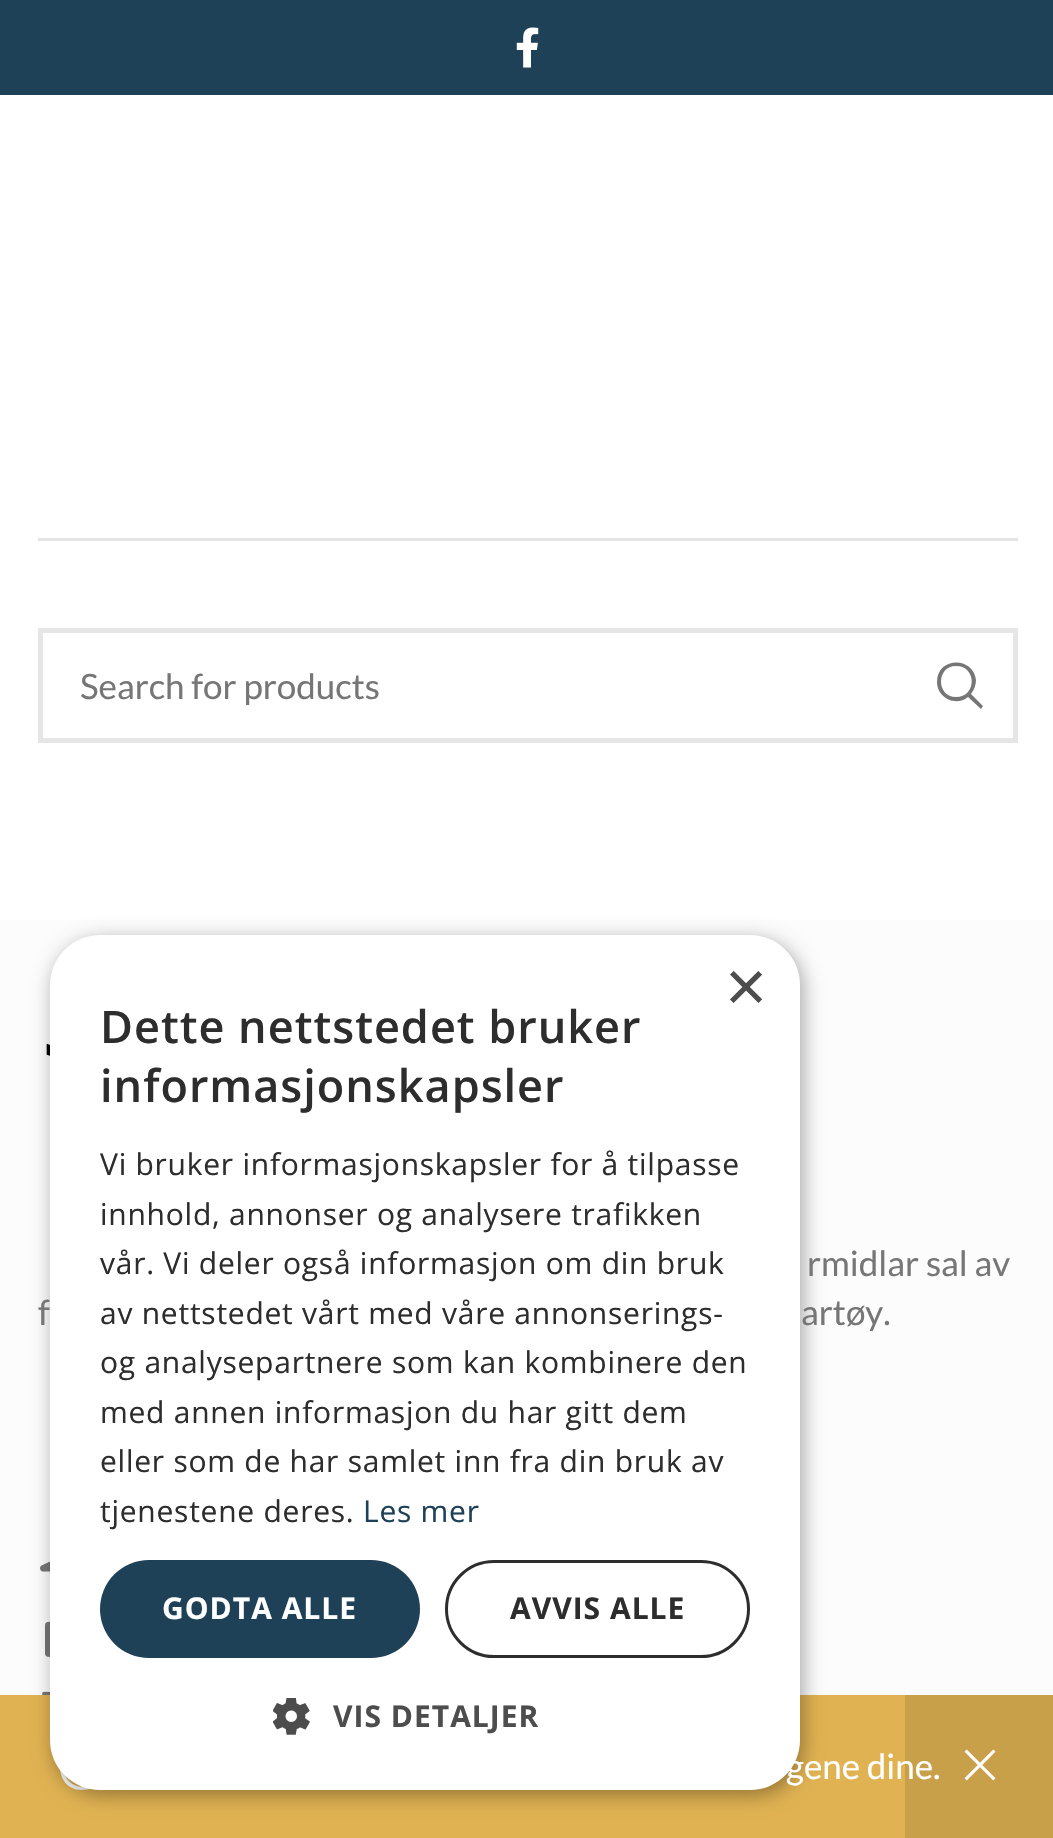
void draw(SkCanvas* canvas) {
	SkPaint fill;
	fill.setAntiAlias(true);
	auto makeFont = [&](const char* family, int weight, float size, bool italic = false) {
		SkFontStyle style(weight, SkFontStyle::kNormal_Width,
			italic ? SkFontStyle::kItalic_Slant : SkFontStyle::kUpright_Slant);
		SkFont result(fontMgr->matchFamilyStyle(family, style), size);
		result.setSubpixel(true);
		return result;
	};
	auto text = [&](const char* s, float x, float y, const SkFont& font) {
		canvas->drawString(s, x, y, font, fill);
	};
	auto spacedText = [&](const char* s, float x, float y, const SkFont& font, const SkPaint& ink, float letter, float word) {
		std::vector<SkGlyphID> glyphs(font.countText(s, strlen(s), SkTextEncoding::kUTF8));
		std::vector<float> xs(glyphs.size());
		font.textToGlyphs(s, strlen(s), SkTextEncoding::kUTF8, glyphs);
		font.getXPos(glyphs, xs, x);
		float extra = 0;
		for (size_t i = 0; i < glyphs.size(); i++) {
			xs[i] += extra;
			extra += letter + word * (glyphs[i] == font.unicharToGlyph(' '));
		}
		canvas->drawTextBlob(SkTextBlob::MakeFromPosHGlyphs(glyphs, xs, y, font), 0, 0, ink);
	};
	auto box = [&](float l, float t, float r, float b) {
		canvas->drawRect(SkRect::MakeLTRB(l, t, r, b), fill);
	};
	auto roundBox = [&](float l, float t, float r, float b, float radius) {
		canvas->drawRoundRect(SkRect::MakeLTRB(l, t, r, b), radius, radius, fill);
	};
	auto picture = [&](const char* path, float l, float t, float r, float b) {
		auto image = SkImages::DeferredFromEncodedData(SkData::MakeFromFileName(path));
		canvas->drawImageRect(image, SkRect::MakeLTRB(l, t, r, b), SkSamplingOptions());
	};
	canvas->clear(0xFFFFFFFF);
	fill.setColor(0xFF1F4158);
	box(0, 0, 1053, 95);
	picture("image0.png", 516, 27, 539, 68);
	fill.setColor(0xFFE4E4E4);
	box(38, 538, 1018, 541);
	fill.setStyle(SkPaint::kStroke_Style);
	fill.setStrokeWidth(5);
	fill.setColor(0xFFE6E6E6);
	canvas->drawRect(SkRect::MakeLTRB(40.5f, 630.5f, 1015.5f, 740.5f), fill);
	fill.setStyle(SkPaint::kFill_Style);
	fill.setColor(0xFF767676);
	canvas->drawPath(SkPathBuilder().moveTo(937, 682).cubicTo(937, 698, 956, 707, 968, 697).lineTo(981, 709).lineTo(983, 706).lineTo(971, 694).cubicTo(974, 690, 976, 685, 976, 680).cubicTo(973, 656, 937, 657, 937, 682).close().moveTo(956, 697).cubicTo(936, 697, 936, 666, 956, 666).cubicTo(977, 666, 977, 697, 956, 697).close().detach(), fill);
	fill.setColor(0xFFE0B252);
	box(0, 1695, 1053, 1838);
	fill.setColor(0xFFFFFFFF);
	canvas->drawPath(SkPathBuilder().moveTo(81, 1757).lineTo(81, 1772).lineTo(84, 1772).lineTo(84, 1757).close().moveTo(81, 1776).lineTo(81, 1779).lineTo(84, 1779).lineTo(84, 1776).close().moveTo(82, 1745).cubicTo(53, 1745, 53, 1790, 82, 1790).cubicTo(112, 1790, 112, 1745, 82, 1745).close().moveTo(64, 1768).cubicTo(64, 1743, 101, 1743, 101, 1768).cubicTo(101, 1793, 64, 1793, 64, 1768).close().detach(), fill);
	fill.setColor(0x1A000000);
	box(905, 1695, 1053, 1838);
	picture("image1.png", 964, 1749, 996, 1781);
	fill.setColor(0xFFFCFCFC);
	box(0, 920, 1053, 1695);
	picture("image2.png", 46, 1043, 50, 1056);
	picture("image3.png", 40, 1561, 50, 1572);
	picture("image4.png", 45, 1621, 50, 1657);
	picture("image5.png", 42, 1691, 50, 1695);
	fill.setColor(0x59000000);
	fill.setMaskFilter(SkMaskFilter::MakeBlur(kNormal_SkBlurStyle, 10));
	canvas->drawRoundRect(SkRect::MakeLTRB(53, 940, 803, 1795), 50, 50, fill);
	fill.setMaskFilter(nullptr);
	fill.setColor(0xFFFFFFFF);
	roundBox(50, 935, 800, 1790, 50);
	fill.setColor(0xFF1F4158);
	roundBox(100, 1560, 420, 1658, 49);
	fill.setStyle(SkPaint::kStroke_Style);
	fill.setStrokeWidth(3);
	fill.setColor(0xFF2D2D2D);
	canvas->drawRoundRect(SkRect::MakeLTRB(446.5f, 1561.5f, 748.5f, 1656.5f), 47.5f, 47.5f, fill);
	picture("image6.png", 273, 1698, 310, 1735);
	auto font1 = makeFont("Lato", 400, 35);
	fill.setStyle(SkPaint::kFill_Style);
	fill.setColor(0xFF767676);
	text("Search for products", 80, 699, font1);
	fill.setColor(0xFFFFFFFF);
	text("gene dine.", 786, 1779, font1);
	fill.setColor(0xFF767676);
	text("rmidlar sal av", 807, 1276, font1);
	text("f", 38, 1325, font1);
	text("artøy.", 801, 1325, font1);
	auto font2 = makeFont("Liberation Sans", 400, 72);
	fill.setColor(0xFF4D4D4D);
	text("×", 725, 1011, font2);
	auto font3 = makeFont("Open Sans", 600, 45);
	fill.setColor(0xFF2D2D2D);
	spacedText("Dette nettstedet bruker", 100, 1043, font3, fill, 1, 0);
	spacedText("informasjonskapsler", 100, 1102, font3, fill, 1, 0);
	auto font4 = makeFont("Open Sans", 400, 30);
	spacedText("Vi bruker informasjonskapsler for å tilpasse", 100, 1175, font4, fill, 0.75f, 0);
	spacedText("innhold, annonser og analysere trafikken", 100, 1225, font4, fill, 0.75f, 0);
	spacedText("vår. Vi deler også informasjon om din bruk", 100, 1274, font4, fill, 0.75f, 0);
	spacedText("av nettstedet vårt med våre annonserings-", 100, 1324, font4, fill, 0.75f, 0);
	spacedText("og analysepartnere som kan kombinere den", 100, 1373, font4, fill, 0.75f, 0);
	spacedText("med annen informasjon du har gitt dem", 100, 1423, font4, fill, 0.75f, 0);
	spacedText("eller som de har samlet inn fra din bruk av", 100, 1472, font4, fill, 0.75f, 0);
	spacedText("tjenestene deres.", 100, 1522, font4, fill, 0.75f, 0);
	fill.setColor(0xFF1F4158);
	spacedText("Les mer", 363, 1522, font4, fill, 0.75f, 0);
	auto font5 = makeFont("Open Sans", 700, 30);
	fill.setColor(0xFFFFFFFF);
	spacedText("GODTA ALLE", 162, 1619, font5, fill, 1, 0);
	fill.setColor(0xFF2D2D2D);
	spacedText("AVVIS ALLE", 510, 1619, font5, fill, 1, 0);
	fill.setColor(0xFF4D4D4D);
	spacedText("VIS DETALJER", 333, 1727, font5, fill, 1, 0);
}
